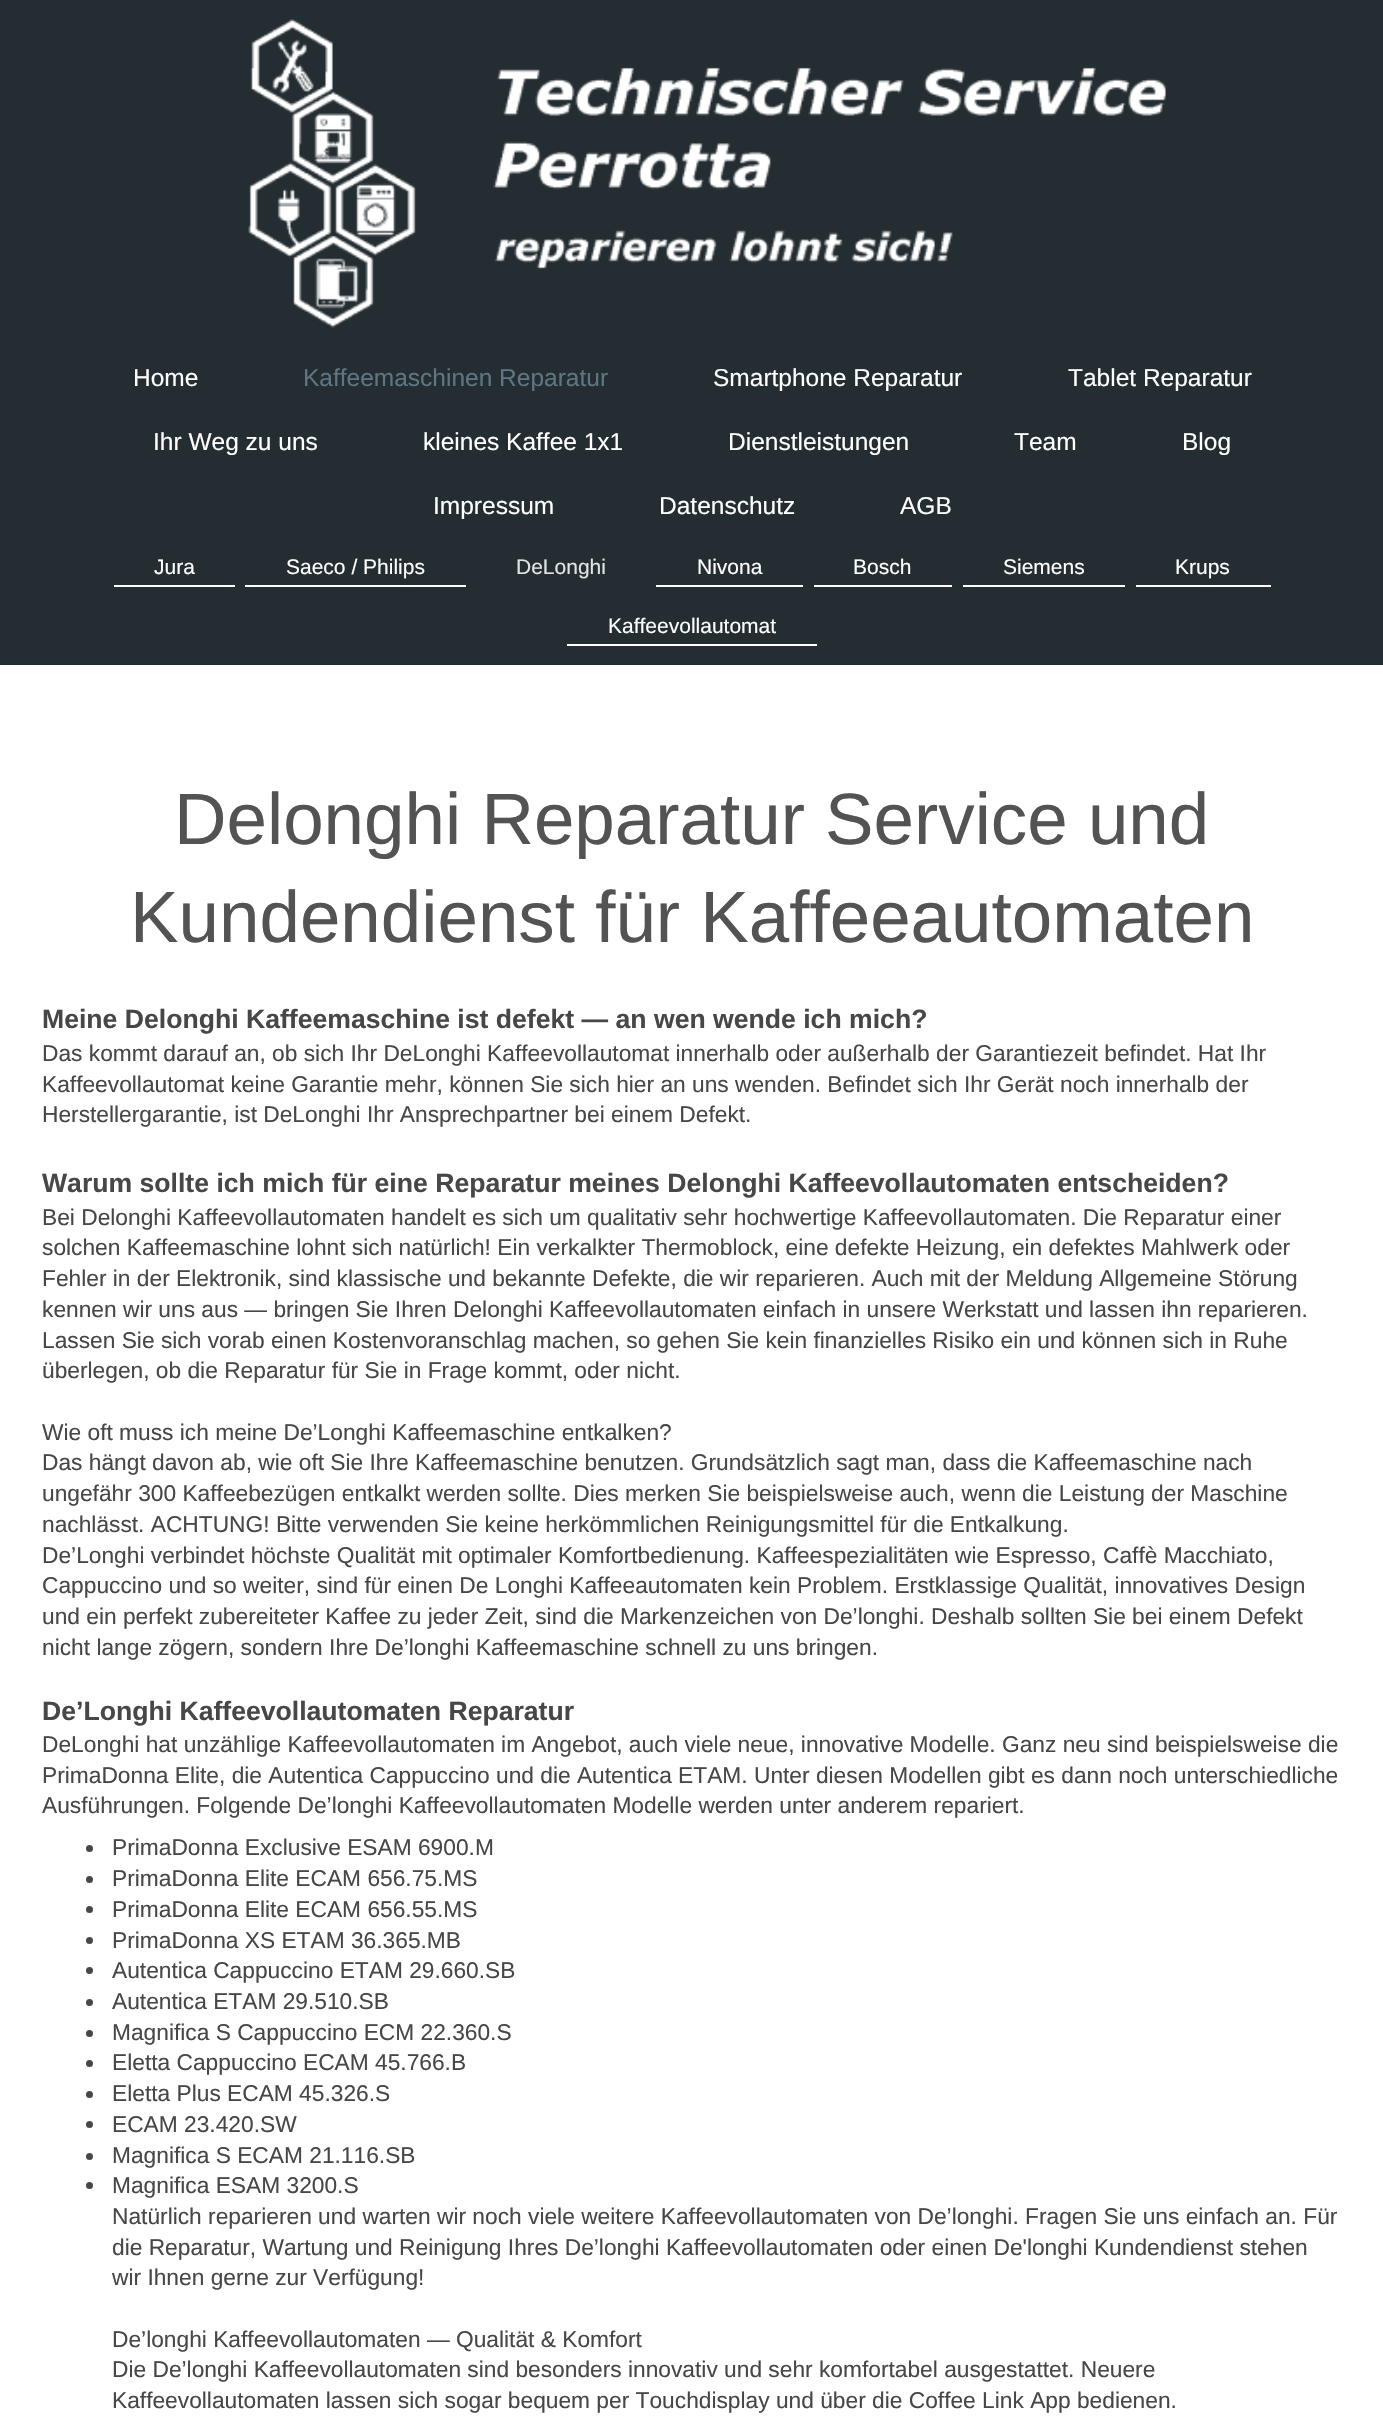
void draw(SkCanvas* canvas) {
	SkPaint fill;
	fill.setAntiAlias(true);
	auto makeFont = [&](const char* family, int weight, float size, bool italic = false) {
		SkFontStyle style(weight, SkFontStyle::kNormal_Width,
			italic ? SkFontStyle::kItalic_Slant : SkFontStyle::kUpright_Slant);
		SkFont result(fontMgr->matchFamilyStyle(family, style), size);
		result.setSubpixel(true);
		return result;
	};
	auto text = [&](const char* s, float x, float y, const SkFont& font) {
		canvas->drawString(s, x, y, font, fill);
	};
	auto box = [&](float l, float t, float r, float b) {
		canvas->drawRect(SkRect::MakeLTRB(l, t, r, b), fill);
	};
	auto picture = [&](const char* path, float l, float t, float r, float b) {
		auto image = SkImages::DeferredFromEncodedData(SkData::MakeFromFileName(path));
		canvas->drawImageRect(image, SkRect::MakeLTRB(l, t, r, b), SkSamplingOptions());
	};
	canvas->clear(0xFFFFFFFF);
	fill.setColor(0xFF242D32);
	box(0, 0, 1383, 665);
	picture("image0.png", 248, 19, 1166, 328);
	fill.setColor(0xFFFFFFFF);
	box(114, 585, 235, 587);
	box(245, 585, 466, 587);
	box(656, 585, 803, 587);
	box(814, 585, 952, 587);
	box(963, 585, 1125, 587);
	box(1136, 585, 1271, 587);
	box(567, 644, 817, 646);
	fill.setColor(0xFF474747);
	canvas->drawCircle(89.5f, 1848.5f, 3.5f, fill);
	canvas->drawCircle(89.5f, 1879.5f, 3.5f, fill);
	canvas->drawCircle(89.5f, 1909.5f, 3.5f, fill);
	canvas->drawCircle(89.5f, 1940.5f, 3.5f, fill);
	canvas->drawCircle(89.5f, 1970.5f, 3.5f, fill);
	canvas->drawCircle(89.5f, 2002.5f, 3.5f, fill);
	canvas->drawCircle(89.5f, 2033.5f, 3.5f, fill);
	canvas->drawCircle(89.5f, 2063.5f, 3.5f, fill);
	canvas->drawCircle(89.5f, 2094.5f, 3.5f, fill);
	canvas->drawCircle(89.5f, 2124.5f, 3.5f, fill);
	canvas->drawCircle(89.5f, 2156.5f, 3.5f, fill);
	canvas->drawCircle(89.5f, 2185.5f, 3.5f, fill);
	auto font1 = makeFont("Liberation Sans", 400, 24.5f);
	fill.setColor(0xFFFFFFFF);
	text("Home", 133, 386, font1);
	fill.setColor(0xFF5E7582);
	text("Kaffeemaschinen Reparatur", 303, 386, font1);
	fill.setColor(0xFFFFFFFF);
	text("Smartphone Reparatur", 713, 386, font1);
	text("Tablet Reparatur", 1068, 386, font1);
	text("Ihr Weg zu uns", 153, 450, font1);
	text("kleines Kaffee 1x1", 423, 450, font1);
	text("Dienstleistungen", 728, 450, font1);
	text("Team", 1014, 450, font1);
	text("Blog", 1182, 450, font1);
	text("Impressum", 433, 514, font1);
	text("Datenschutz", 659, 514, font1);
	text("AGB", 900, 514, font1);
	auto font2 = makeFont("Liberation Sans", 400, 21);
	text("Jura", 154, 574, font2);
	text("Saeco / Philips", 286, 574, font2);
	fill.setColor(0xFFE1E3E4);
	text("DeLonghi", 516, 574, font2);
	fill.setColor(0xFFFFFFFF);
	text("Nivona", 697, 574, font2);
	text("Bosch", 853, 574, font2);
	text("Siemens", 1003, 574, font2);
	text("Krups", 1175, 574, font2);
	text("Kaffeevollautomat", 608, 633, font2);
	auto font3 = makeFont("Liberation Sans", 400, 72.75f);
	fill.setColor(0xFF535353);
	text("Delonghi Reparatur Service und", 174, 844, font3);
	text("Kundendienst für Kaffeeautomaten", 130, 942, font3);
	auto font4 = makeFont("Liberation Sans", 700, 26.6f);
	fill.setColor(0xFF474747);
	text("Meine Delonghi Kaffeemaschine ist defekt — an wen wende ich mich?", 42, 1028, font4);
	auto font5 = makeFont("Liberation Sans", 400, 22.75f);
	text("Das kommt darauf an, ob sich Ihr DeLonghi Kaffeevollautomat innerhalb oder außerhalb der Garantiezeit befindet. Hat Ihr", 42, 1061, font5);
	text("Kaffeevollautomat keine Garantie mehr, können Sie sich hier an uns wenden. Befindet sich Ihr Gerät noch innerhalb der", 42, 1092, font5);
	text("Herstellergarantie, ist DeLonghi Ihr Ansprechpartner bei einem Defekt.", 42, 1122, font5);
	text("Warum sollte ich mich für eine Reparatur meines Delonghi Kaffeevollautomaten entscheiden?", 42, 1192, font4);
	text("Bei Delonghi Kaffeevollautomaten handelt es sich um qualitativ sehr hochwertige Kaffeevollautomaten. Die Reparatur einer", 42, 1225, font5);
	text("solchen Kaffeemaschine lohnt sich natürlich! Ein verkalkter Thermoblock, eine defekte Heizung, ein defektes Mahlwerk oder", 42, 1255, font5);
	text("Fehler in der Elektronik, sind klassische und bekannte Defekte, die wir reparieren. Auch mit der Meldung Allgemeine Störung", 42, 1286, font5);
	text("kennen wir uns aus — bringen Sie Ihren Delonghi Kaffeevollautomaten einfach in unsere Werkstatt und lassen ihn reparieren.", 42, 1317, font5);
	text("Lassen Sie sich vorab einen Kostenvoranschlag machen, so gehen Sie kein finanzielles Risiko ein und können sich in Ruhe", 42, 1348, font5);
	text("überlegen, ob die Reparatur für Sie in Frage kommt, oder nicht.", 42, 1378, font5);
	text("Wie oft muss ich meine De’Longhi Kaffeemaschine entkalken?", 42, 1440, font5);
	text("Das hängt davon ab, wie oft Sie Ihre Kaffeemaschine benutzen. Grundsätzlich sagt man, dass die Kaffeemaschine nach", 42, 1470, font5);
	text("ungefähr 300 Kaffeebezügen entkalkt werden sollte. Dies merken Sie beispielsweise auch, wenn die Leistung der Maschine", 42, 1501, font5);
	text("nachlässt. ACHTUNG! Bitte verwenden Sie keine herkömmlichen Reinigungsmittel für die Entkalkung.", 42, 1532, font5);
	text("De’Longhi verbindet höchste Qualität mit optimaler Komfortbedienung. Kaffeespezialitäten wie Espresso, Caffè Macchiato,", 42, 1563, font5);
	text("Cappuccino und so weiter, sind für einen De Longhi Kaffeeautomaten kein Problem. Erstklassige Qualität, innovatives Design", 42, 1593, font5);
	text("und ein perfekt zubereiteter Kaffee zu jeder Zeit, sind die Markenzeichen von De’longhi. Deshalb sollten Sie bei einem Defekt", 42, 1624, font5);
	text("nicht lange zögern, sondern Ihre De’longhi Kaffeemaschine schnell zu uns bringen.", 42, 1655, font5);
	text("De’Longhi Kaffeevollautomaten Reparatur", 42, 1720, font4);
	text("DeLonghi hat unzählige Kaffeevollautomaten im Angebot, auch viele neue, innovative Modelle. Ganz neu sind beispielsweise die", 42, 1752, font5);
	text("PrimaDonna Elite, die Autentica Cappuccino und die Autentica ETAM. Unter diesen Modellen gibt es dann noch unterschiedliche", 42, 1783, font5);
	text("Ausführungen. Folgende De’longhi Kaffeevollautomaten Modelle werden unter anderem repariert.", 42, 1813, font5);
	text("PrimaDonna Exclusive ESAM 6900.M", 112, 1855, font5);
	text("PrimaDonna Elite ECAM 656.75.MS", 112, 1886, font5);
	text("PrimaDonna Elite ECAM 656.55.MS", 112, 1917, font5);
	text("PrimaDonna XS ETAM 36.365.MB", 112, 1948, font5);
	text("Autentica Cappuccino ETAM 29.660.SB", 112, 1978, font5);
	text("Autentica ETAM 29.510.SB", 112, 2009, font5);
	text("Magnifica S Cappuccino ECM 22.360.S", 112, 2040, font5);
	text("Eletta Cappuccino ECAM 45.766.B", 112, 2070, font5);
	text("Eletta Plus ECAM 45.326.S", 112, 2101, font5);
	text("ECAM 23.420.SW", 112, 2132, font5);
	text("Magnifica S ECAM 21.116.SB", 112, 2163, font5);
	text("Magnifica ESAM 3200.S", 112, 2193, font5);
	text("Natürlich reparieren und warten wir noch viele weitere Kaffeevollautomaten von De’longhi. Fragen Sie uns einfach an. Für", 112, 2224, font5);
	text("die Reparatur, Wartung und Reinigung Ihres De’longhi Kaffeevollautomaten oder einen De'longhi Kundendienst stehen", 112, 2255, font5);
	text("wir Ihnen gerne zur Verfügung!", 112, 2285, font5);
	text("De’longhi Kaffeevollautomaten — Qualität & Komfort", 112, 2347, font5);
	text("Die De’longhi Kaffeevollautomaten sind besonders innovativ und sehr komfortabel ausgestattet. Neuere", 112, 2377, font5);
	text("Kaffeevollautomaten lassen sich sogar bequem per Touchdisplay und über die Coffee Link App bedienen.", 112, 2408, font5);
}
